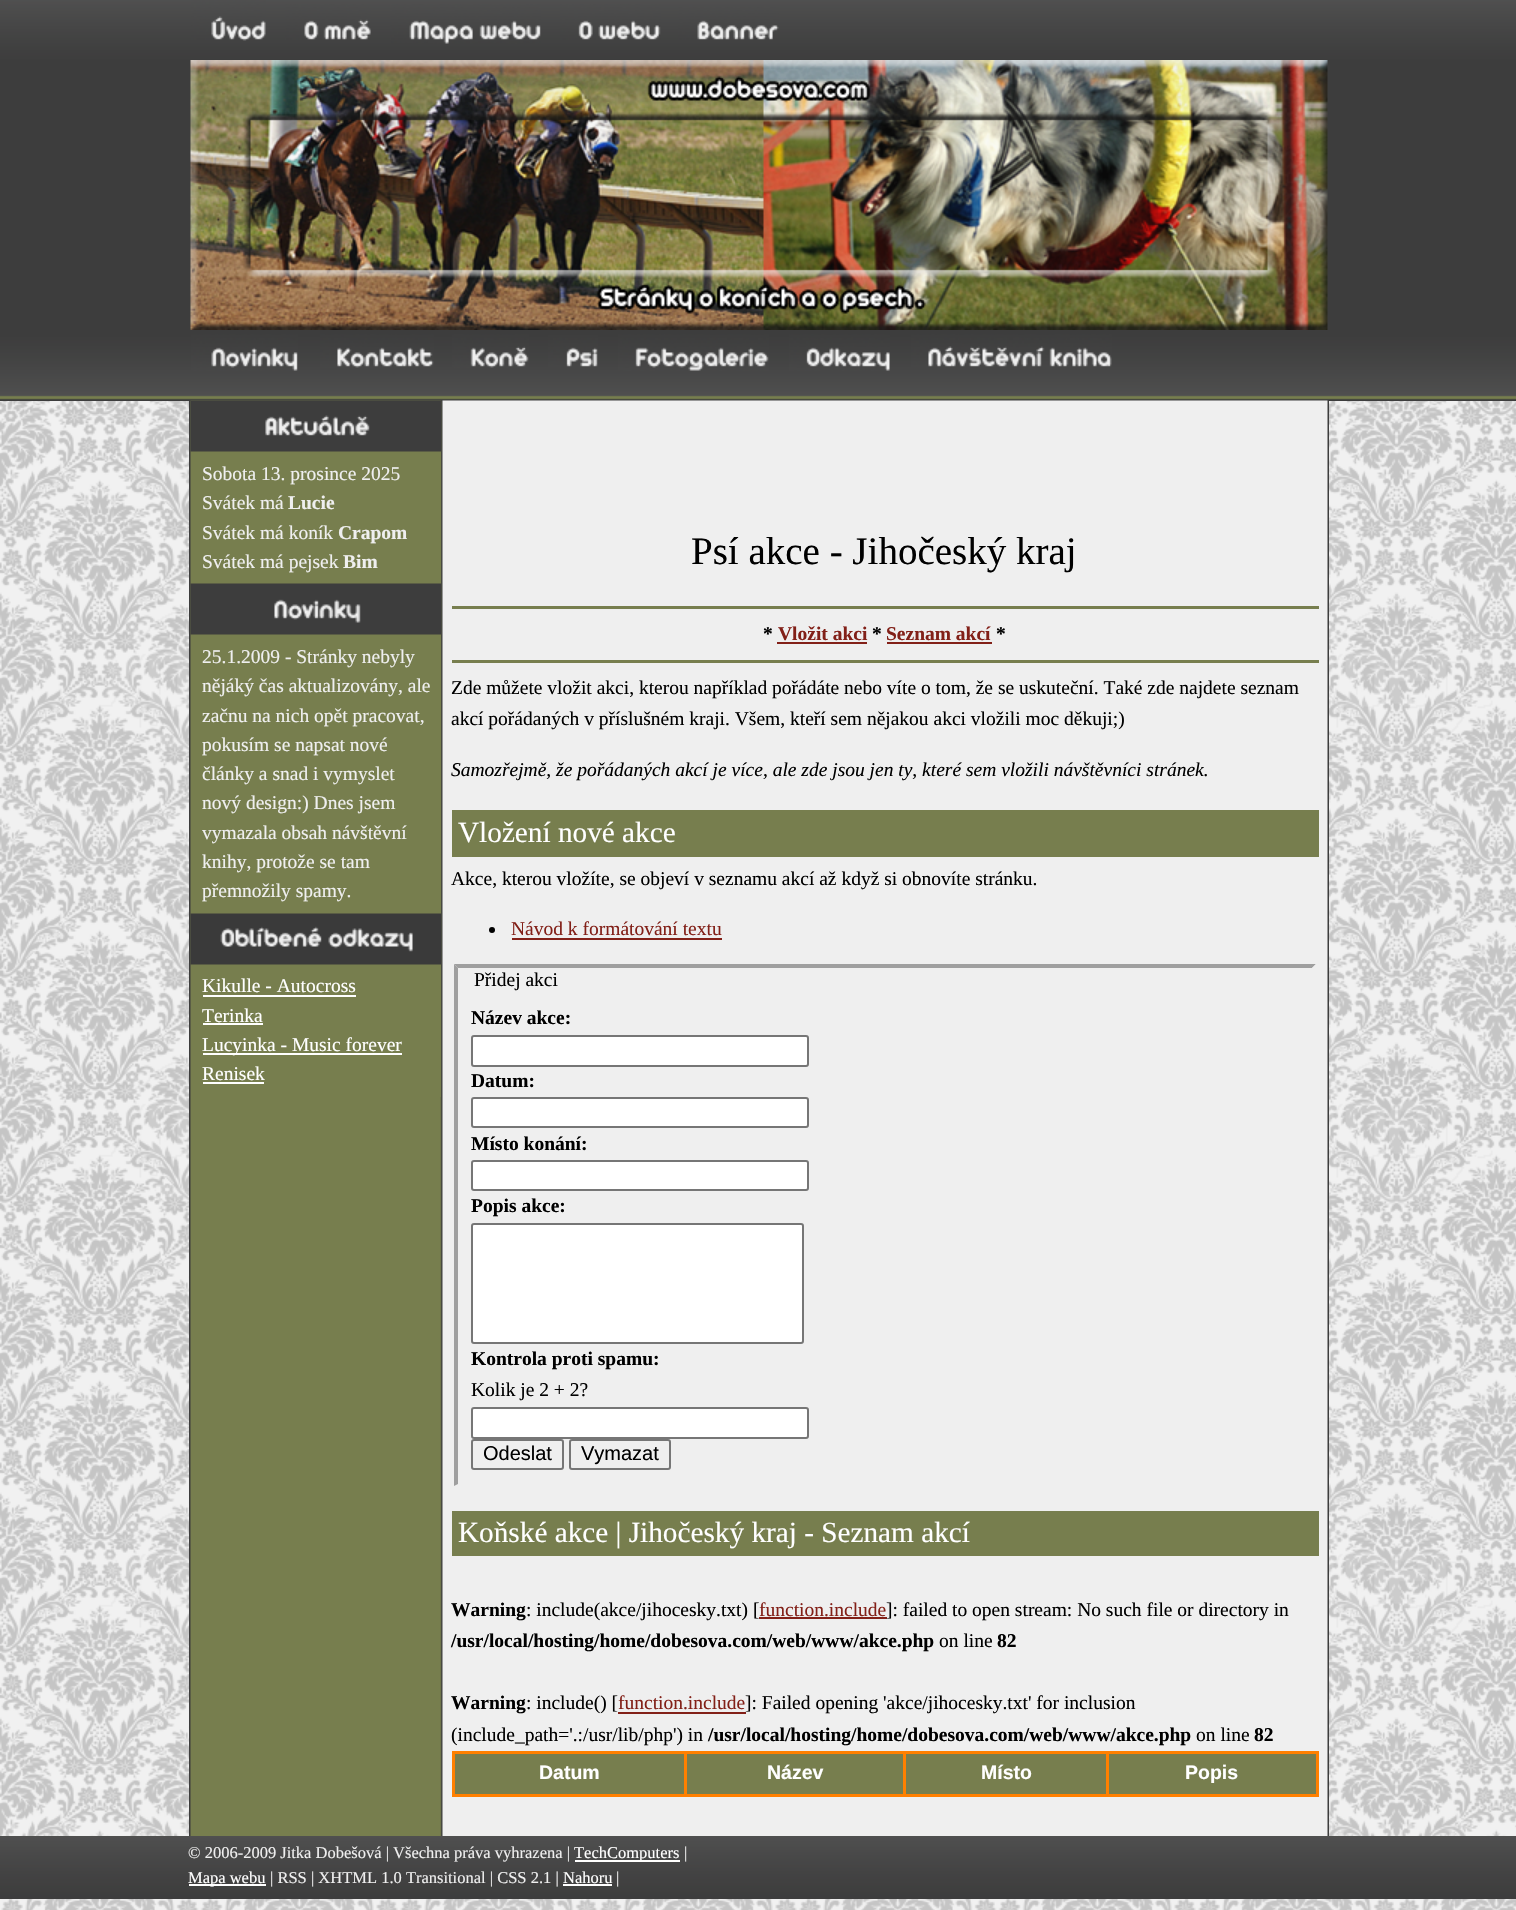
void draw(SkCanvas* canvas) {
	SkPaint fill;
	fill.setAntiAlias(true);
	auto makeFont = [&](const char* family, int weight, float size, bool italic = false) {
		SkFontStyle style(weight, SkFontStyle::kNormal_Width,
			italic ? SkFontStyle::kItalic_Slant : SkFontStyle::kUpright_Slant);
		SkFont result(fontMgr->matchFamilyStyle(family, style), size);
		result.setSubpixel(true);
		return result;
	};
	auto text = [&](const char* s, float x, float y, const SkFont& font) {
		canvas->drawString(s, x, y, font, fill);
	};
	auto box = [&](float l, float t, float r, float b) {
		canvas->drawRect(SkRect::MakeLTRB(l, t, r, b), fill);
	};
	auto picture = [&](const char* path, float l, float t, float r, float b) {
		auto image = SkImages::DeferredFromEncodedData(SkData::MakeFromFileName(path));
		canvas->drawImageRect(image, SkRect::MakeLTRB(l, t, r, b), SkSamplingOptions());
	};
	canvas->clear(0xFFFFFFFF);
	picture("image0.png", 0, 401, 1516, 1910);
	fill.setColor(0xFF3D3D3D);
	box(0, 400, 1516, 401);
	picture("image1.png", 0, 0, 1516, 400);
	picture("image2.png", 191, 0, 266, 41);
	picture("image3.png", 285, 4, 371, 40);
	picture("image4.png", 390, 4, 541, 44);
	picture("image5.png", 560, 4, 661, 40);
	picture("image6.png", 678, 5, 779, 40);
	picture("image7.png", 190, 60, 1328, 330);
	picture("image8.png", 191, 334, 298, 371);
	picture("image9.png", 320, 334, 434, 368);
	picture("image10.png", 452, 334, 529, 368);
	picture("image11.png", 548, 335, 598, 367);
	picture("image12.png", 618, 334, 769, 371);
	picture("image13.png", 789, 334, 890, 371);
	picture("image14.png", 911, 334, 1112, 367);
	picture("image18.png", 189, 400, 1329, 1836);
	fill.setColor(0xFF777E4E);
	box(440, 451, 441, 1097);
	picture("image15.png", 190, 400, 441, 452);
	picture("image16.png", 190, 583, 441, 635);
	picture("image17.png", 190, 913, 441, 965);
	fill.setColor(0xFFFFFFFF);
	box(203, 995, 356, 997);
	box(203, 1023, 263, 1025);
	box(203, 1053, 402, 1055);
	box(203, 1082, 264, 1084);
	fill.setColor(0xFF777E4E);
	box(452, 606, 1319, 609);
	fill.setColor(0xFF822018);
	box(777, 642, 867, 644);
	box(887, 642, 992, 644);
	fill.setColor(0xFF777E4E);
	box(452, 660, 1319, 663);
	box(452, 810, 1319, 857);
	fill.setColor(0xFF000000);
	canvas->drawCircle(492, 930, 3, fill);
	fill.setColor(0xFF822018);
	box(512, 938, 722, 940);
	fill.setColor(0xFF9F9F9F);
	canvas->drawPath(SkPathBuilder().moveTo(454, 964).lineTo(1316, 964).lineTo(1312, 968).lineTo(458, 968).close().detach(), fill);
	fill.setColor(0xFFEFEFEF);
	canvas->drawPath(SkPathBuilder().moveTo(1316, 964).lineTo(1316, 1486).lineTo(1312, 1484).lineTo(1312, 968).close().detach(), fill);
	fill.setColor(0xFF9F9F9F);
	canvas->drawPath(SkPathBuilder().moveTo(454, 1486).lineTo(454, 964).lineTo(458, 968).lineTo(458, 1484).close().detach(), fill);
	fill.setColor(0xFFFFFFFF);
	canvas->drawRoundRect(SkRect::MakeLTRB(472, 1036, 808, 1066), 2, 2, fill);
	fill.setStyle(SkPaint::kStroke_Style);
	fill.setStrokeWidth(2);
	fill.setColor(0xFF767676);
	canvas->drawRoundRect(SkRect::MakeLTRB(472, 1036, 808, 1066), 2, 2, fill);
	fill.setStyle(SkPaint::kFill_Style);
	fill.setColor(0xFFFFFFFF);
	canvas->drawRoundRect(SkRect::MakeLTRB(472, 1098, 808, 1127), 2, 2, fill);
	fill.setStyle(SkPaint::kStroke_Style);
	fill.setColor(0xFF767676);
	canvas->drawRoundRect(SkRect::MakeLTRB(472, 1098, 808, 1127), 2, 2, fill);
	fill.setStyle(SkPaint::kFill_Style);
	fill.setColor(0xFFFFFFFF);
	canvas->drawRoundRect(SkRect::MakeLTRB(472, 1161, 808, 1190), 2, 2, fill);
	fill.setStyle(SkPaint::kStroke_Style);
	fill.setColor(0xFF767676);
	canvas->drawRoundRect(SkRect::MakeLTRB(472, 1161, 808, 1190), 2, 2, fill);
	fill.setStyle(SkPaint::kFill_Style);
	fill.setColor(0xFFFFFFFF);
	canvas->drawRoundRect(SkRect::MakeLTRB(472, 1224, 803, 1343), 2, 2, fill);
	fill.setStyle(SkPaint::kStroke_Style);
	fill.setColor(0xFF767676);
	canvas->drawRoundRect(SkRect::MakeLTRB(472, 1224, 803, 1343), 2, 2, fill);
	fill.setStyle(SkPaint::kFill_Style);
	fill.setColor(0xFFFFFFFF);
	canvas->drawRoundRect(SkRect::MakeLTRB(472, 1408, 808, 1438), 2, 2, fill);
	fill.setStyle(SkPaint::kStroke_Style);
	fill.setColor(0xFF767676);
	canvas->drawRoundRect(SkRect::MakeLTRB(472, 1408, 808, 1438), 2, 2, fill);
	canvas->drawRoundRect(SkRect::MakeLTRB(472, 1440, 563, 1469), 2, 2, fill);
	canvas->drawRoundRect(SkRect::MakeLTRB(570, 1440, 670, 1469), 2, 2, fill);
	fill.setStyle(SkPaint::kFill_Style);
	fill.setColor(0xFF777E4E);
	box(452, 1511, 1319, 1556);
	fill.setColor(0xFF822018);
	box(759, 1617, 887, 1619);
	box(618, 1712, 746, 1714);
	fill.setColor(0xFFFF8000);
	box(452, 1751, 1319, 1754);
	box(1316, 1751, 1319, 1797);
	box(452, 1794, 1319, 1797);
	box(452, 1751, 455, 1797);
	fill.setColor(0xFF777E4E);
	box(455, 1754, 684, 1794);
	box(687, 1754, 903, 1794);
	fill.setColor(0xFFFF8000);
	box(684, 1751, 687, 1797);
	fill.setColor(0xFF777E4E);
	box(906, 1754, 1106, 1794);
	fill.setColor(0xFFFF8000);
	box(903, 1751, 906, 1797);
	fill.setColor(0xFF777E4E);
	box(1109, 1754, 1316, 1794);
	fill.setColor(0xFFFF8000);
	box(1106, 1751, 1109, 1797);
	picture("image19.png", 0, 1836, 1516, 1899);
	fill.setColor(0xFFFFFFFF);
	box(575, 1860, 680, 1862);
	box(189, 1884, 266, 1886);
	box(563, 1884, 612, 1886);
	auto font1 = makeFont("Liberation Serif", 400, 19.5f);
	fill.setColor(0xFFEFEFEF);
	text("Sobota 13. prosince 2025", 202, 480, font1);
	text("Svátek má", 202, 509, font1);
	auto font2 = makeFont("Liberation Serif", 700, 19.5f);
	text("Lucie", 288, 509, font2);
	text("Svátek má koník", 202, 539, font1);
	text("Crapom", 338, 539, font2);
	text("Svátek má pejsek", 202, 568, font1);
	text("Bim", 343, 568, font2);
	text("25.1.2009 - Stránky nebyly", 202, 663, font1);
	text("nějáký čas aktualizovány, ale", 202, 692, font1);
	text("začnu na nich opět pracovat,", 202, 722, font1);
	text("pokusím se napsat nové", 202, 751, font1);
	text("články a snad i vymyslet", 202, 780, font1);
	text("nový design:) Dnes jsem", 202, 809, font1);
	text("vymazala obsah návštěvní", 202, 839, font1);
	text("knihy, protože se tam", 202, 868, font1);
	text("přemnožily spamy.", 202, 897, font1);
	fill.setColor(0xFFFFFFFF);
	text("Kikulle - Autocross", 202, 992, font1);
	text("Terinka", 202, 1022, font1);
	text("Lucyinka - Music forever", 202, 1051, font1);
	text("Renisek", 202, 1080, font1);
	auto font3 = makeFont("Liberation Serif", 400, 39);
	fill.setColor(0xFF000000);
	text("Psí akce - Jihočeský kraj", 691, 564, font3);
	text("*", 763, 640, font2);
	fill.setColor(0xFF822018);
	text("Vložit akci", 778, 640, font2);
	fill.setColor(0xFF000000);
	text("*", 872, 640, font2);
	fill.setColor(0xFF822018);
	text("Seznam akcí", 886, 640, font2);
	fill.setColor(0xFF000000);
	text("*", 996, 640, font2);
	text("Zde můžete vložit akci, kterou například pořádáte nebo víte o tom, že se uskuteční. Také zde najdete seznam", 451, 694, font1);
	text("akcí pořádaných v příslušném kraji. Všem, kteří sem nějakou akci vložili moc děkuji;)", 451, 725, font1);
	auto font4 = makeFont("Liberation Serif", 400, 19.5f, true);
	text("Samozřejmě, že pořádaných akcí je více, ale zde jsou jen ty, které sem vložili návštěvníci stránek.", 451, 776, font4);
	auto font5 = makeFont("Liberation Serif", 400, 29.25f);
	fill.setColor(0xFFFFFFFF);
	text("Vložení nové akce", 458, 842, font5);
	fill.setColor(0xFF000000);
	text("Akce, kterou vložíte, se objeví v seznamu akcí až když si obnovíte stránku.", 451, 885, font1);
	fill.setColor(0xFF822018);
	text("Návod k formátování textu", 511, 935, font1);
	fill.setColor(0xFF000000);
	text("Přidej akci", 474, 986, font1);
	text("Název akce:", 471, 1024, font2);
	text("Datum:", 471, 1087, font2);
	text("Místo konání:", 471, 1150, font2);
	text("Popis akce:", 471, 1212, font2);
	text("Kontrola proti spamu:", 471, 1365, font2);
	text("Kolik je 2 + 2?", 471, 1396, font1);
	auto font6 = makeFont("Liberation Sans", 400, 20);
	text("Odeslat", 483, 1460, font6);
	text("Vymazat", 581, 1460, font6);
	fill.setColor(0xFFFFFFFF);
	text("Koňské akce | Jihočeský kraj - Seznam akcí", 458, 1542, font5);
	fill.setColor(0xFF000000);
	text("Warning", 451, 1616, font2);
	text(": include(akce/jihocesky.txt) [", 526, 1616, font1);
	fill.setColor(0xFF822018);
	text("function.include", 759, 1616, font1);
	fill.setColor(0xFF000000);
	text("]: failed to open stream: No such file or directory in", 886, 1616, font1);
	text("/usr/local/hosting/home/dobesova.com/web/www/akce.php", 451, 1647, font2);
	text("on line", 939, 1647, font1);
	text("82", 997, 1647, font2);
	text("Warning", 451, 1709, font2);
	text(": include() [", 526, 1709, font1);
	fill.setColor(0xFF822018);
	text("function.include", 618, 1709, font1);
	fill.setColor(0xFF000000);
	text("]: Failed opening 'akce/jihocesky.txt' for inclusion", 745, 1709, font1);
	text("(include_path='.:/usr/lib/php') in", 451, 1741, font1);
	text("/usr/local/hosting/home/dobesova.com/web/www/akce.php", 708, 1741, font2);
	text("on line", 1196, 1741, font1);
	text("82", 1254, 1741, font2);
	auto font7 = makeFont("Liberation Sans", 700, 19.5f);
	fill.setColor(0xFFFFFFFF);
	text("Datum", 539, 1779, font7);
	text("Název", 767, 1779, font7);
	text("Místo", 981, 1779, font7);
	text("Popis", 1185, 1779, font7);
	auto font8 = makeFont("Liberation Serif", 400, 16.5f);
	fill.setColor(0xFFEFEFEF);
	text("© 2006-2009 Jitka Dobešová | Všechna práva vyhrazena |", 188, 1858, font8);
	fill.setColor(0xFFFFFFFF);
	text("TechComputers", 574, 1858, font8);
	fill.setColor(0xFFEFEFEF);
	text("|", 684, 1858, font8);
	fill.setColor(0xFFFFFFFF);
	text("Mapa webu", 188, 1883, font8);
	fill.setColor(0xFFEFEFEF);
	text("| RSS | XHTML 1.0 Transitional | CSS 2.1 |", 270, 1883, font8);
	fill.setColor(0xFFFFFFFF);
	text("Nahoru", 563, 1883, font8);
	fill.setColor(0xFFEFEFEF);
	text("|", 616, 1883, font8);
}
